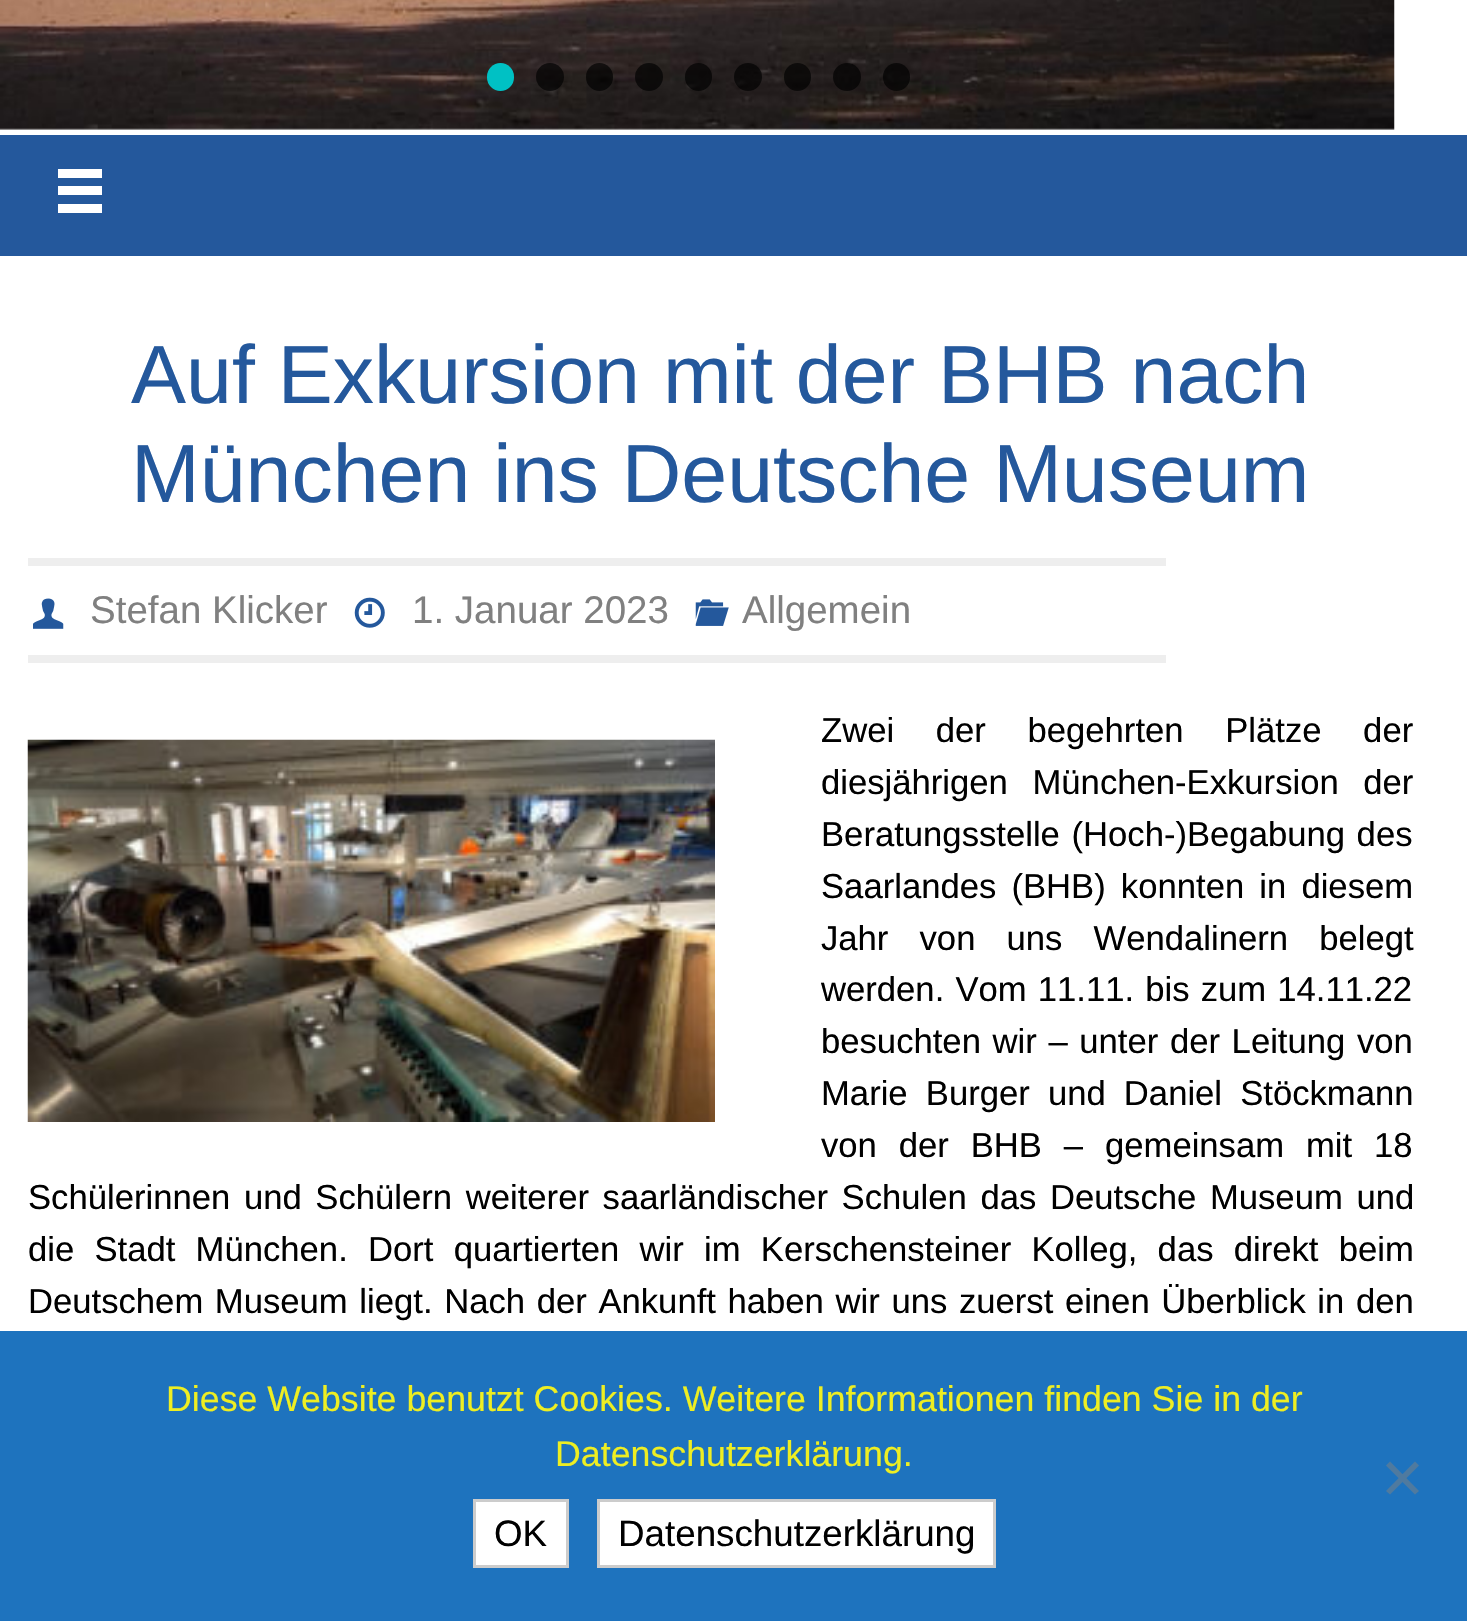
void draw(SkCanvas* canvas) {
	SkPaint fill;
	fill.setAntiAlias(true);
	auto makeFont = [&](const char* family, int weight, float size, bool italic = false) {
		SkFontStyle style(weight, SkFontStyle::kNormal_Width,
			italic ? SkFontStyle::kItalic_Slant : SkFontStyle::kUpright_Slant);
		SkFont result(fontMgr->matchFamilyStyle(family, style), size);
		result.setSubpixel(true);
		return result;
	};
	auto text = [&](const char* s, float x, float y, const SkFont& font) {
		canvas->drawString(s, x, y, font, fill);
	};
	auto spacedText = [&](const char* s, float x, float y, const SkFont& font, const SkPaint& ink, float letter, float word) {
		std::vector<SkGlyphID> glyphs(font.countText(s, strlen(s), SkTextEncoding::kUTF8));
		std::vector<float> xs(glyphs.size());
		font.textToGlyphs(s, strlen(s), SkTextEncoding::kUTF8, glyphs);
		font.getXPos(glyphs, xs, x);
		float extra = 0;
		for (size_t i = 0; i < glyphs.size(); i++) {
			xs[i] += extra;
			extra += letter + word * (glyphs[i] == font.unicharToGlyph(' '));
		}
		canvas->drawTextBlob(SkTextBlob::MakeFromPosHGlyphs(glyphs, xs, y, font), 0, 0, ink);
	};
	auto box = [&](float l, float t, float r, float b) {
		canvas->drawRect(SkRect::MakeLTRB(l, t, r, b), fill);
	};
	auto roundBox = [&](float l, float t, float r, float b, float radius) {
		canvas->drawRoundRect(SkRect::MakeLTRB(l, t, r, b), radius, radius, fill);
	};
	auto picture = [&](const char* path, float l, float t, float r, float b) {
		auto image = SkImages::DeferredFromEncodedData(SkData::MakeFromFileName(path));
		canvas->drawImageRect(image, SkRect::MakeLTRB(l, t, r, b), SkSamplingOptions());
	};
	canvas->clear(0xFFFFFFFF);
	picture("image0.png", 0, 0, 1395, 130);
	fill.setColor(0xFF00C1C4);
	roundBox(487, 63, 514, 91, 13.5f);
	fill.setColor(0xAB000000);
	canvas->drawCircle(550, 77, 14, fill);
	roundBox(586, 63, 613, 91, 13.5f);
	canvas->drawCircle(649, 77, 14, fill);
	roundBox(685, 63, 712, 91, 13.5f);
	canvas->drawCircle(748, 77, 14, fill);
	roundBox(784, 63, 811, 91, 13.5f);
	canvas->drawCircle(847, 77, 14, fill);
	roundBox(883, 63, 910, 91, 13.5f);
	fill.setColor(0xFF24589C);
	box(0, 135, 1467, 256);
	fill.setColor(0xFFFFFFFF);
	canvas->drawPath(SkPathBuilder().moveTo(58, 169).lineTo(58, 178).lineTo(102, 178).lineTo(102, 169).close().moveTo(58, 186).lineTo(58, 195).lineTo(102, 195).lineTo(102, 186).close().moveTo(58, 204).lineTo(58, 213).lineTo(102, 213).lineTo(102, 204).close().detach(), fill);
	fill.setColor(0xFFEEEEEE);
	box(28, 558, 1166, 566);
	box(28, 655, 1166, 663);
	picture("image1.png", 33, 598, 64, 629);
	picture("image2.png", 354, 597, 385, 628);
	picture("image3.png", 695, 599, 729, 626);
	picture("image4.png", 27, 739, 715, 1122);
	fill.setColor(0xFF1E73BE);
	box(0, 1331, 1467, 1621);
	fill.setColor(0xFF4F7A9F);
	canvas->drawPath(SkPathBuilder().moveTo(1415, 1461.5f).lineTo(1419, 1465.5f).lineTo(1390, 1494.5f).lineTo(1386, 1491).close().detach(), fill);
	canvas->drawPath(SkPathBuilder().moveTo(1386, 1465.5f).lineTo(1390, 1461.5f).lineTo(1419, 1491).lineTo(1415, 1494.5f).close().detach(), fill);
	fill.setColor(0xFFFFFFFF);
	canvas->drawRect(SkRect::MakeLTRB(474.5f, 1500.5f, 567.5f, 1566.5f), fill);
	fill.setStyle(SkPaint::kStroke_Style);
	fill.setStrokeWidth(3);
	fill.setColor(0xFFCCCCCC);
	canvas->drawRect(SkRect::MakeLTRB(474.5f, 1500.5f, 567.5f, 1566.5f), fill);
	fill.setStyle(SkPaint::kFill_Style);
	fill.setColor(0xFFFFFFFF);
	canvas->drawRect(SkRect::MakeLTRB(598.5f, 1500.5f, 994.5f, 1566.5f), fill);
	fill.setStyle(SkPaint::kStroke_Style);
	fill.setColor(0xFFCCCCCC);
	canvas->drawRect(SkRect::MakeLTRB(598.5f, 1500.5f, 994.5f, 1566.5f), fill);
	auto font1 = makeFont("Liberation Sans", 400, 82.5f);
	fill.setStyle(SkPaint::kFill_Style);
	fill.setColor(0xFF24589C);
	text("Auf Exkursion mit der BHB nach", 131, 403, font1);
	text("München ins Deutsche Museum", 131, 502, font1);
	auto font2 = makeFont("Liberation Sans", 400, 38.5f);
	fill.setColor(0xFF808080);
	text("Stefan Klicker", 90, 623, font2);
	text("1. Januar 2023", 412, 623, font2);
	text("Allgemein", 742, 623, font2);
	auto font3 = makeFont("Liberation Sans", 400, 34.65f);
	fill.setColor(0xFF000000);
	spacedText("Zwei der begehrten Plätze der", 821, 742, font3, fill, 0, 32);
	spacedText("diesjährigen München-Exkursion der", 821, 794, font3, fill, 0, 15);
	spacedText("Beratungsstelle (Hoch-)Begabung des", 821, 846, font3, fill, 0, 2);
	spacedText("Saarlandes (BHB) konnten in diesem", 821, 898, font3, fill, 0, 5.5f);
	spacedText("Jahr von uns Wendalinern belegt", 821, 950, font3, fill, 0, 21.5f);
	spacedText("werden. Vom 11.11. bis zum 14.11.22", 821, 1001, font3, fill, 0, 1.5f);
	spacedText("besuchten wir – unter der Leitung von", 821, 1053, font3, fill, 0, 2);
	spacedText("Marie Burger und Daniel Stöckmann", 821, 1105, font3, fill, 0, 8.5f);
	spacedText("von der BHB – gemeinsam mit 18", 821, 1157, font3, fill, 0, 12.25f);
	spacedText("Schülerinnen und Schülern weiterer saarländischer Schulen das Deutsche Museum und", 28, 1209, font3, fill, 0, 4);
	spacedText("die Stadt München. Dort quartierten wir im Kerschensteiner Kolleg, das direkt beim", 28, 1261, font3, fill, 0, 10.6f);
	spacedText("Deutschem Museum liegt. Nach der Ankunft haben wir uns zuerst einen Überblick in den", 28, 1313, font3, fill, 0, 2);
	auto font4 = makeFont("Liberation Sans", 400, 35.75f);
	fill.setColor(0xFFEEEE22);
	text("Diese Website benutzt Cookies. Weitere Informationen finden Sie in der", 166, 1411, font4);
	text("Datenschutzerklärung.", 555, 1466, font4);
	auto font5 = makeFont("Liberation Sans", 400, 36.75f);
	fill.setColor(0xFF000000);
	text("OK", 494, 1546, font5);
	text("Datenschutzerklärung", 618, 1546, font5);
}
